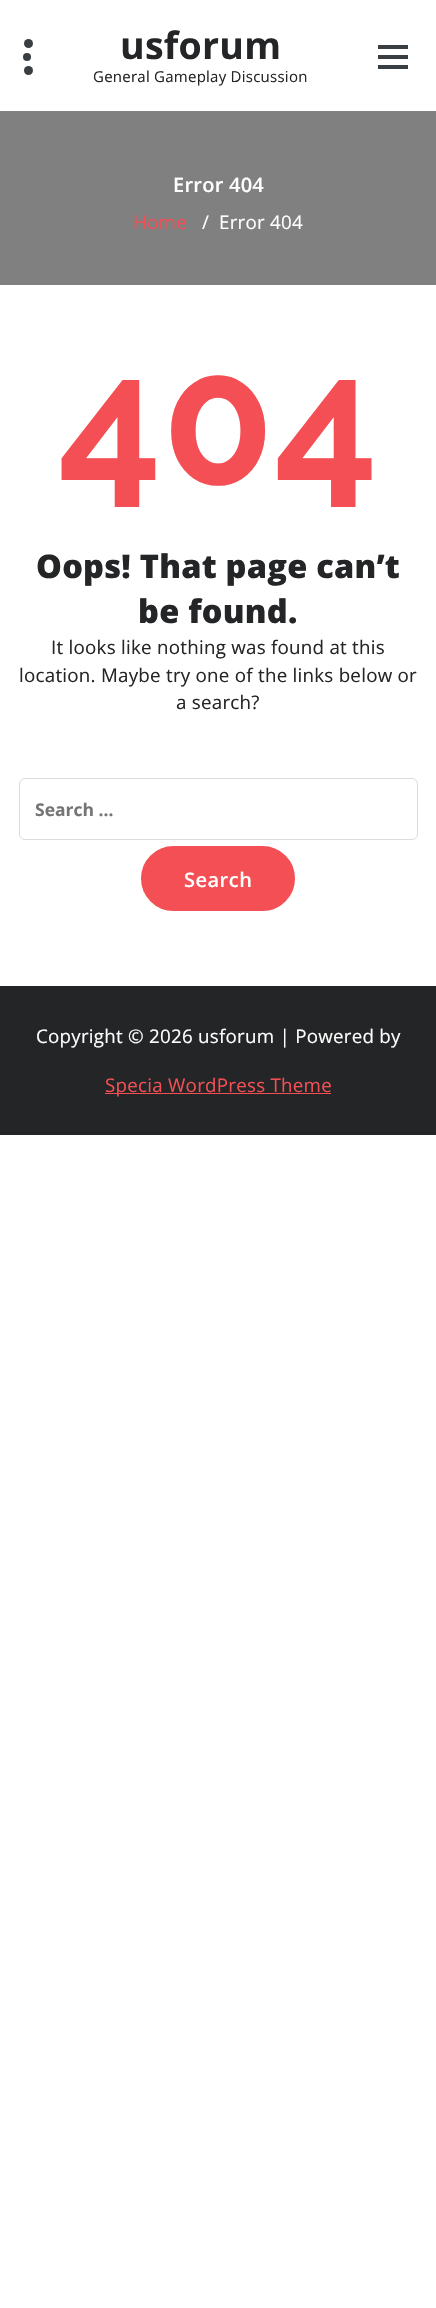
void draw(SkCanvas* canvas) {
	SkPaint fill;
	fill.setAntiAlias(true);
	auto makeFont = [&](const char* family, int weight, float size, bool italic = false) {
		SkFontStyle style(weight, SkFontStyle::kNormal_Width,
			italic ? SkFontStyle::kItalic_Slant : SkFontStyle::kUpright_Slant);
		SkFont result(fontMgr->matchFamilyStyle(family, style), size);
		result.setSubpixel(true);
		return result;
	};
	auto text = [&](const char* s, float x, float y, const SkFont& font) {
		canvas->drawString(s, x, y, font, fill);
	};
	auto spacedText = [&](const char* s, float x, float y, const SkFont& font, const SkPaint& ink, float letter, float word) {
		std::vector<SkGlyphID> glyphs(font.countText(s, strlen(s), SkTextEncoding::kUTF8));
		std::vector<float> xs(glyphs.size());
		font.textToGlyphs(s, strlen(s), SkTextEncoding::kUTF8, glyphs);
		font.getXPos(glyphs, xs, x);
		float extra = 0;
		for (size_t i = 0; i < glyphs.size(); i++) {
			xs[i] += extra;
			extra += letter + word * (glyphs[i] == font.unicharToGlyph(' '));
		}
		canvas->drawTextBlob(SkTextBlob::MakeFromPosHGlyphs(glyphs, xs, y, font), 0, 0, ink);
	};
	auto box = [&](float l, float t, float r, float b) {
		canvas->drawRect(SkRect::MakeLTRB(l, t, r, b), fill);
	};
	canvas->clear(0xFFFFFFFF);
	fill.setColor(0xFF383E41);
	canvas->drawCircle(27, 57, 4, fill);
	canvas->drawCircle(28.5f, 43.5f, 4.5f, fill);
	canvas->drawCircle(28.5f, 70.5f, 4.5f, fill);
	box(378, 45, 408, 49);
	box(378, 55, 408, 59);
	box(378, 65, 408, 69);
	fill.setColor(0xFF808080);
	box(0, 111, 436, 285);
	fill.setStyle(SkPaint::kStroke_Style);
	fill.setStrokeWidth(1);
	fill.setColor(0xFFDCDCDC);
	canvas->drawRoundRect(SkRect::MakeLTRB(19.5f, 778.5f, 417.5f, 839.5f), 5.5f, 5.5f, fill);
	fill.setStyle(SkPaint::kFill_Style);
	fill.setColor(0xFFF34F54);
	canvas->drawRoundRect(SkRect::MakeLTRB(142.5f, 847.5f, 293.5f, 909.5f), 31, 31, fill);
	fill.setStyle(SkPaint::kStroke_Style);
	fill.setStrokeWidth(3);
	canvas->drawRoundRect(SkRect::MakeLTRB(142.5f, 847.5f, 293.5f, 909.5f), 31, 31, fill);
	fill.setStyle(SkPaint::kFill_Style);
	fill.setColor(0xFF242526);
	box(0, 986, 436, 1135);
	fill.setColor(0xFFF34F54);
	box(105, 1093, 331, 1094);
	auto font1 = makeFont("Open Sans", 700, 37.5f);
	fill.setColor(0xFF242526);
	spacedText("usforum", 120, 59, font1, fill, 0.25f, 0);
	auto font2 = makeFont("Open Sans", 400, 15);
	spacedText("General Gameplay Discussion", 93, 82, font2, fill, 0.25f, 0);
	auto font3 = makeFont("Open Sans", 600, 20);
	fill.setColor(0xFFFFFFFF);
	spacedText("Error 404", 173, 192, font3, fill, 0.25f, 0);
	auto font4 = makeFont("Open Sans", 400, 18.75f);
	fill.setColor(0xFFF34F54);
	spacedText("Home", 133, 229, font4, fill, 0.25f, 0);
	fill.setColor(0xFFFFFFFF);
	spacedText("/", 202, 229, font4, fill, 0.25f, 0);
	spacedText("Error 404", 219, 229, font4, fill, 0.25f, 0);
	auto font5 = makeFont("Raleway", 700, 182);
	fill.setColor(0xFFF34F54);
	spacedText("404", 58, 484, font5, fill, 0.25f, 0);
	auto font6 = makeFont("Open Sans", 800, 32.5f);
	fill.setColor(0xFF242526);
	spacedText("Oops! That page can’t", 36, 578, font6, fill, 0.25f, 0);
	spacedText("be found.", 138, 623, font6, fill, 0.25f, 0);
	spacedText("It looks like nothing was found at this", 51, 654, font4, fill, 0.25f, 0);
	spacedText("location. Maybe try one of the links below or", 19, 682, font4, fill, 0.25f, 0);
	spacedText("a search?", 176, 709, font4, fill, 0.25f, 0);
	auto font7 = makeFont("Open Sans", 700, 17.5f);
	fill.setColor(0xFF757575);
	text("Search …", 35, 816, font7);
	fill.setColor(0xFFFFFFFF);
	spacedText("Search", 184, 887, font3, fill, 0.5f, 0);
	spacedText("Copyright © 2026 usforum | Powered by", 36, 1043, font4, fill, 0.25f, 0);
	fill.setColor(0xFFF34F54);
	spacedText("Specia WordPress Theme", 105, 1092, font4, fill, 0.25f, 0);
}
